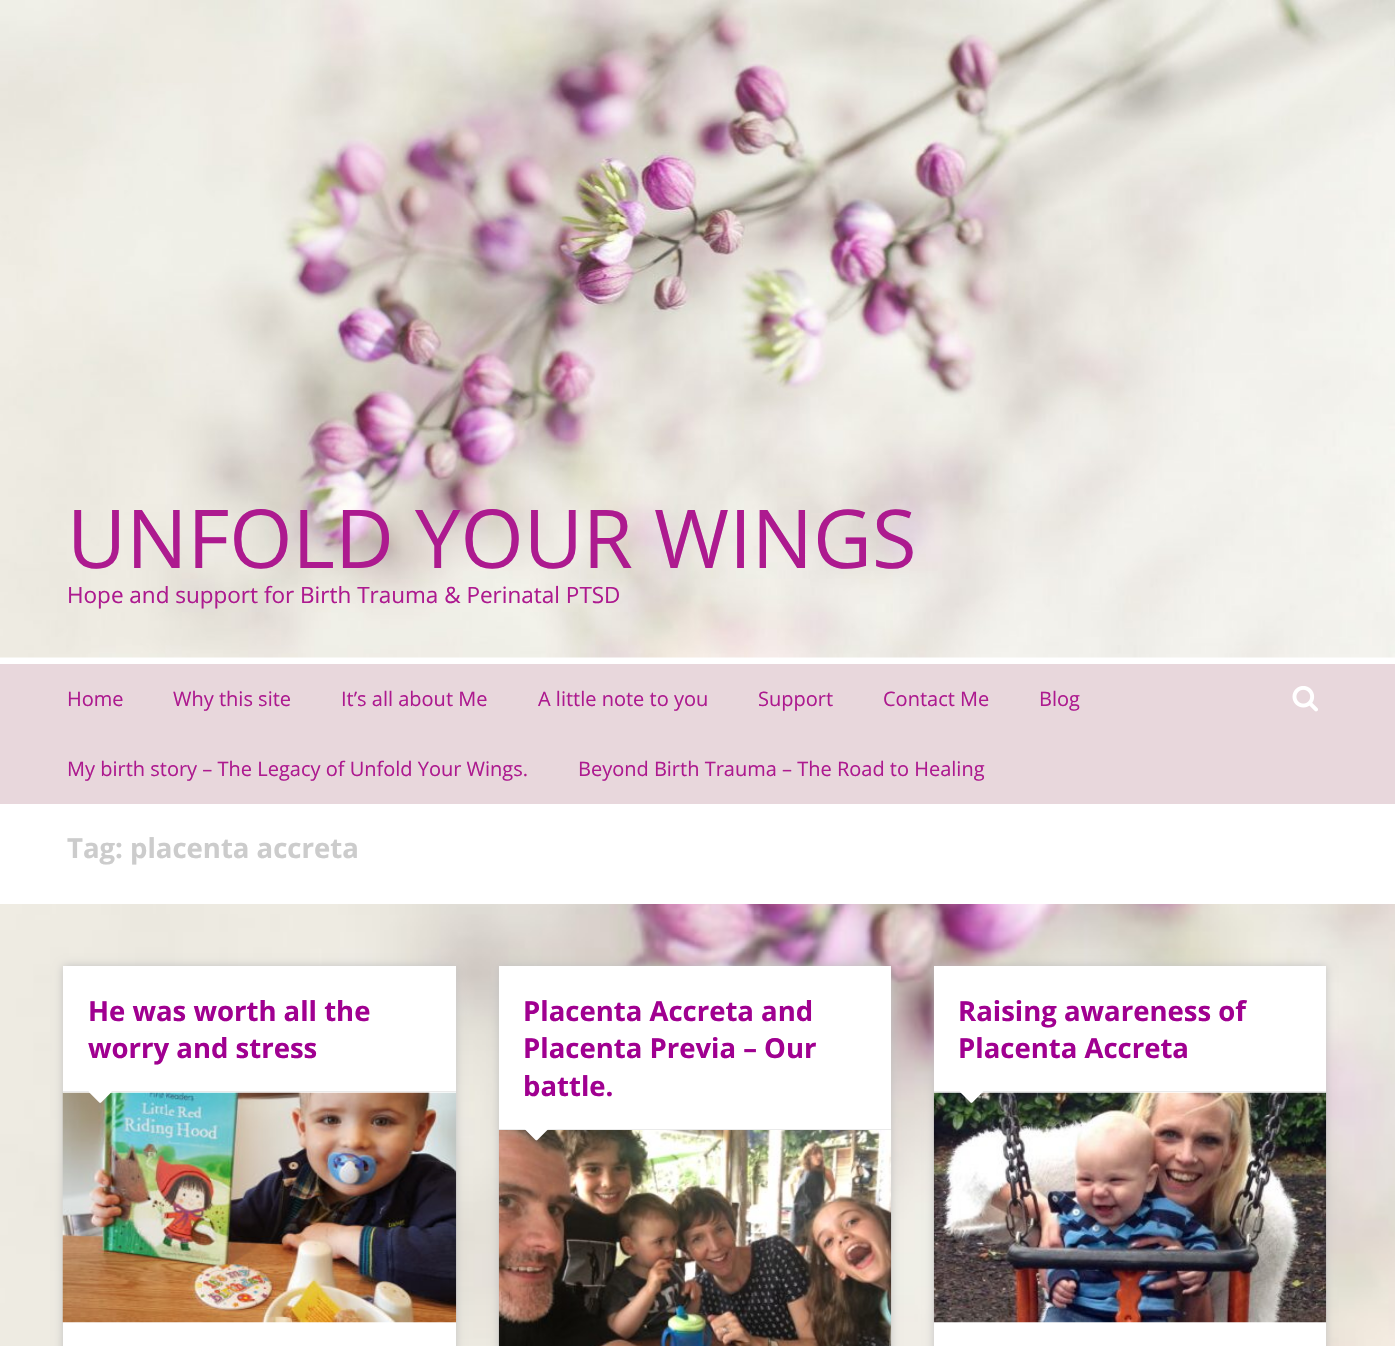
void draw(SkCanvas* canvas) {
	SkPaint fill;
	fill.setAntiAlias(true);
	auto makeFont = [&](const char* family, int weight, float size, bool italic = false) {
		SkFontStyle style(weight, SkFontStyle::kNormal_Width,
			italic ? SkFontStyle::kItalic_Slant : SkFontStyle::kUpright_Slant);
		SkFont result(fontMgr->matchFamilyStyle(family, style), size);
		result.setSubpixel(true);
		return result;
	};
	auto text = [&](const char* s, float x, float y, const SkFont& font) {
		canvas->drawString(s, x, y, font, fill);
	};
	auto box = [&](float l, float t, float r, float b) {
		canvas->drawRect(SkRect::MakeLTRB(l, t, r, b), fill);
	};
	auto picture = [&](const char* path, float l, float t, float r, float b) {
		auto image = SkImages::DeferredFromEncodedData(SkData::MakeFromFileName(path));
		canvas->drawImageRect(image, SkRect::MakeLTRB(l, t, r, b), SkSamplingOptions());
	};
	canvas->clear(0xFFFFFFFF);
	picture("image0.png", 0, 904, 1395, 1346);
	picture("image1.png", 0, 0, 1395, 658);
	fill.setColor(0xFFE8D7DC);
	box(0, 664, 1395, 804);
	picture("image2.png", 1292, 686, 1318, 712);
	fill.setColor(0xFFC2C2C2);
	fill.setMaskFilter(SkMaskFilter::MakeBlur(kNormal_SkBlurStyle, 4.5f));
	canvas->drawRect(SkRect::MakeLTRB(63, 966, 456, 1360), fill);
	fill.setMaskFilter(nullptr);
	fill.setColor(0xFFFFFFFF);
	box(63, 966, 456, 1346);
	fill.setColor(0xFFEAEAEA);
	box(63, 1091, 456, 1092);
	picture("image4.png", 62, 1092, 457, 1323);
	picture("image3.png", 88, 1091, 112, 1103);
	fill.setColor(0xFFC2C2C2);
	fill.setMaskFilter(SkMaskFilter::MakeBlur(kNormal_SkBlurStyle, 4.5f));
	canvas->drawRect(SkRect::MakeLTRB(499, 966, 891, 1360), fill);
	fill.setMaskFilter(nullptr);
	fill.setColor(0xFFFFFFFF);
	box(499, 966, 891, 1129);
	fill.setColor(0xFFEAEAEA);
	box(499, 1129, 891, 1130);
	picture("image6.png", 498, 1130, 892, 1346);
	picture("image5.png", 525, 1129, 548, 1141);
	fill.setColor(0xFFC2C2C2);
	fill.setMaskFilter(SkMaskFilter::MakeBlur(kNormal_SkBlurStyle, 4.5f));
	canvas->drawRect(SkRect::MakeLTRB(934, 966, 1326, 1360), fill);
	fill.setMaskFilter(nullptr);
	fill.setColor(0xFFFFFFFF);
	box(934, 966, 1326, 1346);
	fill.setColor(0xFFEAEAEA);
	box(934, 1091, 1326, 1092);
	picture("image8.png", 933, 1092, 1327, 1323);
	picture("image7.png", 960, 1091, 983, 1103);
	auto font1 = makeFont("Open Sans", 400, 81.25f);
	fill.setColor(0xFFAD1A8F);
	text("UNFOLD YOUR WINGS", 67, 568, font1);
	auto font2 = makeFont("Open Sans", 400, 22.5f);
	text("Hope and support for Birth Trauma & Perinatal PTSD", 67, 603, font2);
	auto font3 = makeFont("Open Sans", 400, 20);
	text("Home", 67, 706, font3);
	text("Why this site", 173, 706, font3);
	text("It’s all about Me", 341, 706, font3);
	text("A little note to you", 538, 706, font3);
	text("Support", 758, 706, font3);
	text("Contact Me", 883, 706, font3);
	text("Blog", 1039, 706, font3);
	text("My birth story – The Legacy of Unfold Your Wings.", 67, 776, font3);
	text("Beyond Birth Trauma – The Road to Healing", 578, 776, font3);
	auto font4 = makeFont("Open Sans", 700, 27.5f);
	fill.setColor(0xFFCCCCCC);
	text("Tag: placenta accreta", 67, 858, font4);
	fill.setColor(0xFFA00090);
	text("He was worth all the", 88, 1021, font4);
	text("worry and stress", 88, 1058, font4);
	text("Placenta Accreta and", 523, 1021, font4);
	text("Placenta Previa – Our", 523, 1058, font4);
	text("battle.", 523, 1096, font4);
	text("Raising awareness of", 958, 1021, font4);
	text("Placenta Accreta", 958, 1058, font4);
}
